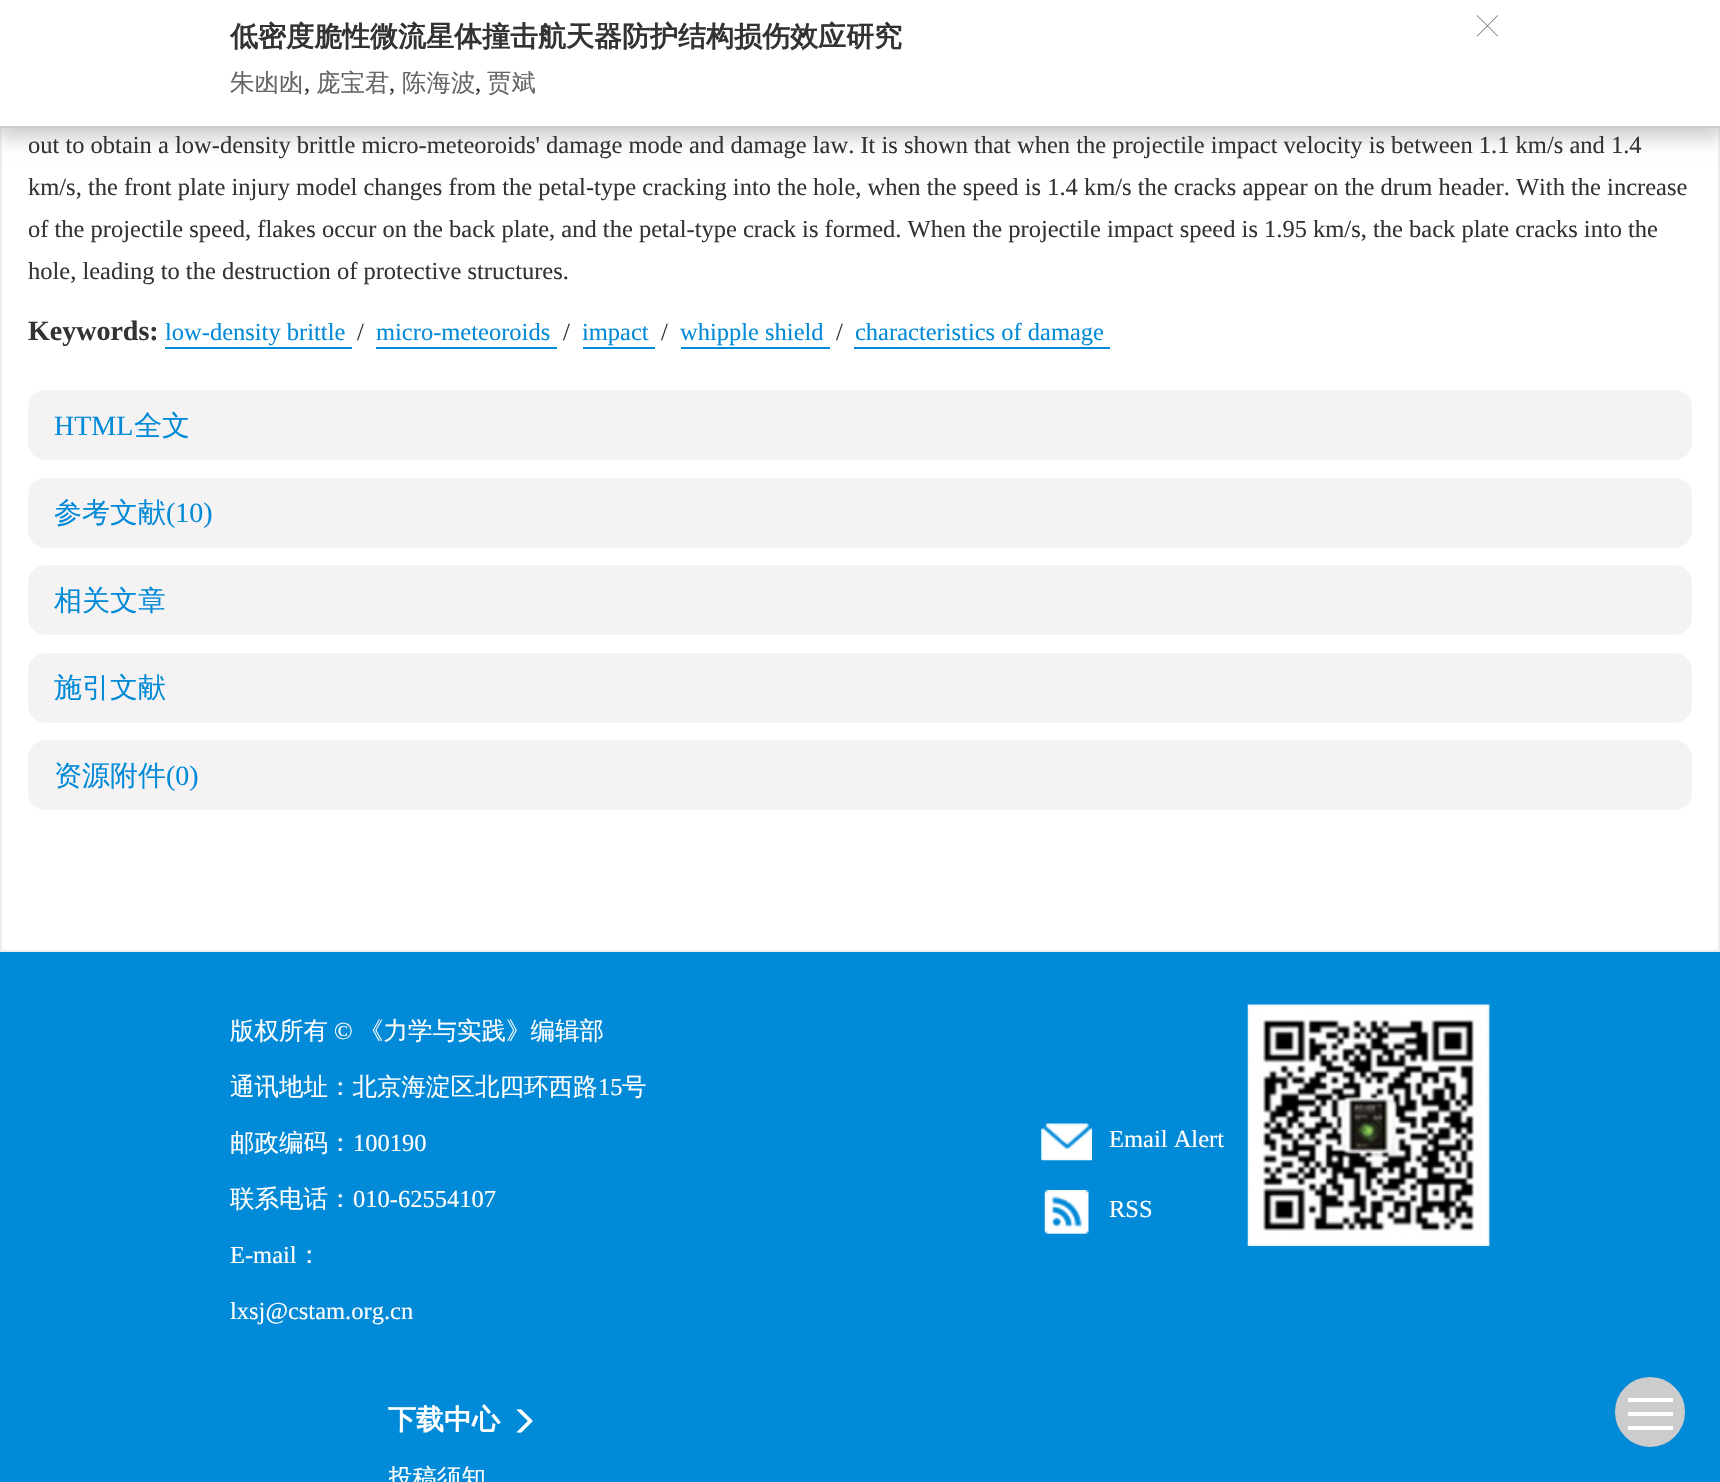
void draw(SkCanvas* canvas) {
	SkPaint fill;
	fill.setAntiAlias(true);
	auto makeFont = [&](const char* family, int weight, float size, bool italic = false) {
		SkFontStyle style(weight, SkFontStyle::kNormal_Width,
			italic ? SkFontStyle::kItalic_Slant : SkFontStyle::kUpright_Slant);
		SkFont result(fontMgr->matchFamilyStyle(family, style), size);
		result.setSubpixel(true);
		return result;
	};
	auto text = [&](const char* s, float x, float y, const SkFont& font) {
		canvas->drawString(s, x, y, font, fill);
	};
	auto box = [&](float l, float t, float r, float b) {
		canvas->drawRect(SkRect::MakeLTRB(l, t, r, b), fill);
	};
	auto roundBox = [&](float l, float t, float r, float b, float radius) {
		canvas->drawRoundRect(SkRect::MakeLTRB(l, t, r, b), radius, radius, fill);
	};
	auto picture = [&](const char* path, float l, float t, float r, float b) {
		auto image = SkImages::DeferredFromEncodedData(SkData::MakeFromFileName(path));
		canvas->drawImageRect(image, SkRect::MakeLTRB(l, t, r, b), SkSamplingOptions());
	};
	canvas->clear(0xFFFFFFFF);
	fill.setStyle(SkPaint::kStroke_Style);
	fill.setStrokeWidth(2);
	fill.setColor(0xFFEEEEEE);
	canvas->drawRect(SkRect::MakeLTRB(1, -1, 1719, 951), fill);
	fill.setStyle(SkPaint::kFill_Style);
	fill.setColor(0x33000000);
	fill.setMaskFilter(SkMaskFilter::MakeBlur(kNormal_SkBlurStyle, 9));
	canvas->drawRect(SkRect::MakeLTRB(-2, 7, 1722, 138), fill);
	fill.setMaskFilter(nullptr);
	fill.setColor(0xFFFFFFFF);
	box(0, 0, 1720, 126);
	fill.setColor(0xFFCCCCCC);
	box(0, 126, 1720, 128);
	picture("image0.png", 1476, 15, 1499, 37);
	fill.setColor(0xFF018AD8);
	box(165, 347, 352, 349);
	box(376, 347, 557, 349);
	box(583, 347, 655, 349);
	box(681, 347, 830, 349);
	box(854, 347, 1110, 349);
	fill.setColor(0xFFF4F2F2);
	roundBox(28, 390, 1692, 460, 18);
	roundBox(28, 478, 1692, 548, 18);
	roundBox(28, 565, 1692, 635, 18);
	roundBox(28, 653, 1692, 723, 18);
	roundBox(28, 740, 1692, 810, 18);
	fill.setColor(0xFF018AD8);
	box(0, 952, 1720, 1482);
	fill.setColor(0xFFCCCCCC);
	canvas->drawCircle(1650, 1412, 34, fill);
	fill.setStyle(SkPaint::kStroke_Style);
	canvas->drawCircle(1650, 1412, 34, fill);
	fill.setStyle(SkPaint::kFill_Style);
	fill.setColor(0xFFFFFFFF);
	box(1628, 1398, 1673, 1402);
	box(1628, 1412, 1673, 1416);
	box(1628, 1426, 1673, 1430);
	picture("image1.png", 516, 1409, 533, 1433);
	picture("image2.png", 1041, 1123, 1092, 1161);
	picture("image3.png", 1044, 1190, 1089, 1234);
	picture("image4.png", 1247, 1004, 1490, 1246);
	auto font1 = makeFont("WenQuanYi Zen Hei", 700, 28);
	fill.setColor(0xFF333333);
	text("低密度脆性微流星体撞击航天器防护结构损伤效应研究", 230, 46, font1);
	auto font2 = makeFont("WenQuanYi Zen Hei", 500, 24.5f);
	fill.setColor(0xFF666666);
	text("朱凼凼", 230, 91, font2);
	auto font3 = makeFont("Liberation Serif", 400, 24.5f);
	fill.setColor(0xFF333333);
	text(",", 304, 91, font3);
	fill.setColor(0xFF666666);
	text("庞宝君", 316, 91, font2);
	fill.setColor(0xFF333333);
	text(",", 389, 91, font3);
	fill.setColor(0xFF666666);
	text("陈海波", 402, 91, font2);
	fill.setColor(0xFF333333);
	text(",", 475, 91, font3);
	fill.setColor(0xFF666666);
	text("贾斌", 487, 91, font2);
	fill.setColor(0xFF333333);
	text("out to obtain a low-density brittle micro-meteoroids' damage mode and damage law. It is shown that when the projectile impact velocity is between 1.1 km/s and 1.4", 28, 153, font3);
	text("km/s, the front plate injury model changes from the petal-type cracking into the hole, when the speed is 1.4 km/s the cracks appear on the drum header. With the increase", 28, 195, font3);
	text("of the projectile speed, flakes occur on the back plate, and the petal-type crack is formed. When the projectile impact speed is 1.95 km/s, the back plate cracks into the", 28, 237, font3);
	text("hole, leading to the destruction of protective structures.", 28, 279, font3);
	auto font4 = makeFont("Liberation Serif", 700, 28);
	text("Keywords:", 28, 340, font4);
	fill.setColor(0xFF018AD8);
	text("low-density brittle", 165, 340, font3);
	fill.setColor(0xFF333333);
	text("/", 357, 340, font3);
	fill.setColor(0xFF018AD8);
	text("micro-meteoroids", 376, 340, font3);
	fill.setColor(0xFF333333);
	text("/", 563, 340, font3);
	fill.setColor(0xFF018AD8);
	text("impact", 582, 340, font3);
	fill.setColor(0xFF333333);
	text("/", 661, 340, font3);
	fill.setColor(0xFF018AD8);
	text("whipple shield", 680, 340, font3);
	fill.setColor(0xFF333333);
	text("/", 836, 340, font3);
	fill.setColor(0xFF018AD8);
	text("characteristics of damage", 855, 340, font3);
	auto font5 = makeFont("Liberation Serif", 400, 28);
	text("HTML", 54, 435, font5);
	auto font6 = makeFont("WenQuanYi Zen Hei", 500, 28);
	text("全文", 134, 435, font6);
	text("参考文献", 54, 522, font6);
	text("(10)", 166, 522, font5);
	text("相关文章", 54, 610, font6);
	text("施引文献", 54, 697, font6);
	text("资源附件", 54, 785, font6);
	text("(0)", 166, 785, font5);
	fill.setColor(0xFFFFFFFF);
	text("版权所有", 230, 1039, font2);
	text("©", 334, 1039, font3);
	text("《力学与实践》编辑部", 359, 1039, font2);
	text("通讯地址：北京海淀区北四环西路", 230, 1095, font2);
	text("15", 598, 1095, font3);
	text("号", 622, 1095, font2);
	text("邮政编码：", 230, 1151, font2);
	text("100190", 353, 1151, font3);
	text("联系电话：", 230, 1207, font2);
	text("010-62554107", 353, 1207, font3);
	text("E-mail", 230, 1263, font3);
	text("：", 297, 1263, font2);
	text("lxsj@cstam.org.cn", 230, 1319, font3);
	text("下载中心", 388, 1429, font1);
	canvas->save();
	canvas->clipRect(SkRect::MakeLTRB(389, 1451, 718, 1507));
	text("投稿须知", 388, 1486, font2);
	canvas->restore();
	text("Email Alert", 1109, 1147, font3);
	text("RSS", 1109, 1217, font3);
}
